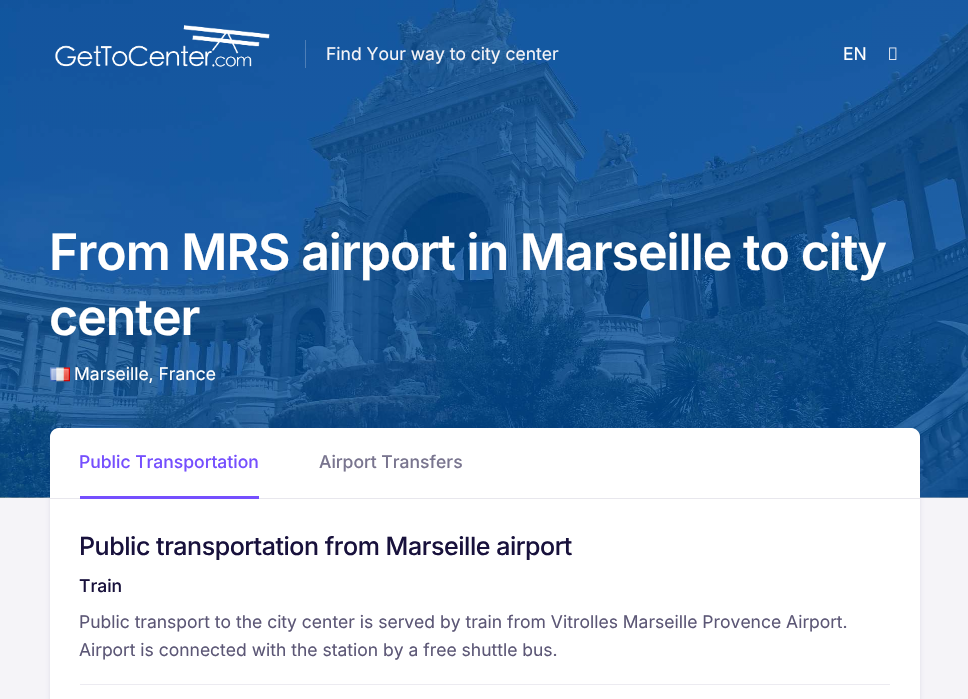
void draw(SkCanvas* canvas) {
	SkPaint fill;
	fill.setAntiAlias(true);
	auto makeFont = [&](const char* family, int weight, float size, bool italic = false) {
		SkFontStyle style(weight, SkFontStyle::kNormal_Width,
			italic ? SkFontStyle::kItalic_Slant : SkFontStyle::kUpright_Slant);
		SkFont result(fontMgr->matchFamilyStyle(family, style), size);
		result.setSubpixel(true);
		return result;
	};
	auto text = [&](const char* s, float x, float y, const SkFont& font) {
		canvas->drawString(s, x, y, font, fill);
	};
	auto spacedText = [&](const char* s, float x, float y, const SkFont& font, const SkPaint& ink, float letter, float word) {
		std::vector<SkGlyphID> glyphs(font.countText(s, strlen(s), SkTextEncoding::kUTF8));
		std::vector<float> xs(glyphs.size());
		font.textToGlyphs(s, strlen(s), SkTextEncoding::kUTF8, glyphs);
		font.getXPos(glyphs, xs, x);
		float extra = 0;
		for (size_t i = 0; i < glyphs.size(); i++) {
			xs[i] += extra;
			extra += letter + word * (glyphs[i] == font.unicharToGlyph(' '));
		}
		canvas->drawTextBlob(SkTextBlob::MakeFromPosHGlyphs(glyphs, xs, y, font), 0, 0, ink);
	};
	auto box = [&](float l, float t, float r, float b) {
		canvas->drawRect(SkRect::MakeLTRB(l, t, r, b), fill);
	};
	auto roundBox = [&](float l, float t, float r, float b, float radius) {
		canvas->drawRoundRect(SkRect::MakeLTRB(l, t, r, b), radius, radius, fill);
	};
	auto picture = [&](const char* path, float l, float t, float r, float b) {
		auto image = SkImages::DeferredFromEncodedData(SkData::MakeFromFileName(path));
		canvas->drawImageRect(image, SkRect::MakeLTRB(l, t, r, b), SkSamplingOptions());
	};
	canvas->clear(0xFFF5F4F8);
	picture("image2.png", 0, 0, 968, 498);
	picture("image0.png", 55, 25, 270, 67);
	fill.setColor(0x40F5F4F8);
	box(305, 40, 306, 68);
	picture("image1.png", 889, 47, 897, 60);
	picture("image3.png", 50, 367, 70, 382);
	fill.setColor(0x17030047);
	fill.setMaskFilter(SkMaskFilter::MakeBlur(kNormal_SkBlurStyle, 2));
	canvas->drawRoundRect(SkRect::MakeLTRB(50, 429, 920, 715), 10, 10, fill);
	fill.setMaskFilter(nullptr);
	fill.setColor(0xFFFFFFFF);
	roundBox(50, 428, 920, 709, 10);
	canvas->drawPath(SkPathBuilder().moveTo(59, 428).lineTo(911, 428).cubicTo(916, 428, 920, 432, 920, 437).lineTo(920, 499).lineTo(50, 499).lineTo(50, 437).cubicTo(50, 432, 54, 428, 59, 428).close().detach(), fill);
	fill.setColor(0xFFE8E7ED);
	box(50, 498, 920, 499);
	fill.setColor(0xFF754FFE);
	box(80, 496, 259, 499);
	fill.setColor(0xFFECEBF1);
	box(80, 684, 890, 685);
	auto font1 = makeFont("Inter", 400, 17.5f);
	fill.setColor(0xFFF5F4F8);
	text("Find Your way to city center", 326, 60, font1);
	fill.setColor(0xFFFFFFFF);
	text("EN", 843, 60, font1);
	auto font2 = makeFont("Inter", 600, 50);
	spacedText("From MRS airport in Marseille to city", 49, 270, font2, fill, -1, 0);
	spacedText("center", 49, 335, font2, fill, -1, 0);
	text("Marseille, France", 74, 380, font1);
	auto font3 = makeFont("Inter", 500, 17.5f);
	fill.setColor(0xFF754FFE);
	text("Public Transportation", 79, 468, font3);
	fill.setColor(0xFF79758F);
	text("Airport Transfers", 319, 468, font3);
	auto font4 = makeFont("Inter", 500, 25);
	fill.setColor(0xFF18113C);
	spacedText("Public transportation from Marseille airport", 79, 555, font4, fill, -0.45f, 0);
	text("Train", 79, 592, font3);
	fill.setColor(0xFF5C5776);
	text("Public transport to the city center is served by train from Vitrolles Marseille Provence Airport.", 79, 628, font1);
	text("Airport is connected with the station by a free shuttle bus.", 79, 656, font1);
}
